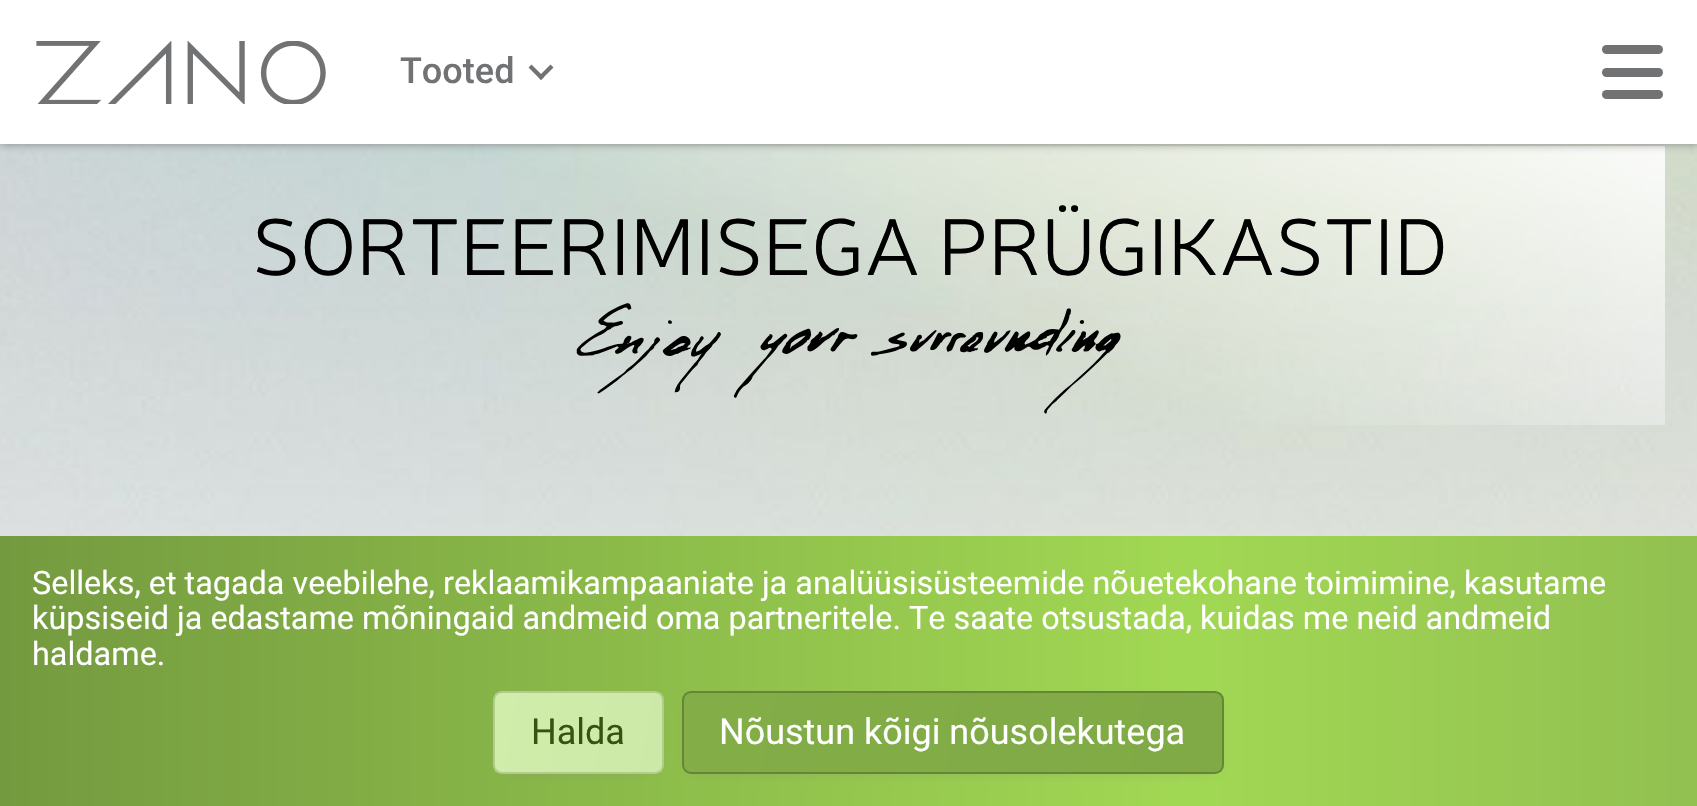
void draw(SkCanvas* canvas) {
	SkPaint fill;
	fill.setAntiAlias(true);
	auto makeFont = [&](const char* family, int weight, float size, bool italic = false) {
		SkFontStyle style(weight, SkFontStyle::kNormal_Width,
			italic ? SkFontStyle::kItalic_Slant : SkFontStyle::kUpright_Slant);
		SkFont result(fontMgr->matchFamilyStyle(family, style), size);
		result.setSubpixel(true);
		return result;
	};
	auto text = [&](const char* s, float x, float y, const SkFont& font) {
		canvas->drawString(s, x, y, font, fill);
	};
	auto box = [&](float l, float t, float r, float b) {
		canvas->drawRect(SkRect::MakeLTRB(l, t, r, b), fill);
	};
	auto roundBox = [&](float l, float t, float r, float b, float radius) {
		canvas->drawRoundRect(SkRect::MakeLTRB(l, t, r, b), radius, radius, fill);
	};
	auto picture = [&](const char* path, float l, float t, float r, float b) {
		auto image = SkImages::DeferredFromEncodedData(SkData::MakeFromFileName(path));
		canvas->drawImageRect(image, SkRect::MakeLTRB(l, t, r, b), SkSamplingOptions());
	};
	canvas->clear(0xFFFFFFFF);
	picture("image0.png", 0, 144, 1697, 536);
	fill.setColor(0xE6808080);
	fill.setMaskFilter(SkMaskFilter::MakeBlur(kNormal_SkBlurStyle, 4.5f));
	canvas->drawRect(SkRect::MakeLTRB(0, 0, 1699, 144), fill);
	fill.setMaskFilter(nullptr);
	fill.setColor(0xFFFFFFFF);
	box(0, 0, 1697, 144);
	picture("image1.png", 36, 41, 326, 104);
	fill.setColor(0xFF717274);
	canvas->drawPath(SkPathBuilder().moveTo(550.5f, 64.5f).lineTo(553.5f, 67.5f).lineTo(541, 80).lineTo(538, 77).close().detach(), fill);
	canvas->drawPath(SkPathBuilder().moveTo(531.5f, 64.5f).lineTo(544, 77).lineTo(541, 80).lineTo(528.5f, 67.5f).close().detach(), fill);
	roundBox(1602, 45, 1663, 54, 4.5f);
	roundBox(1602, 68, 1663, 77, 4.5f);
	roundBox(1602, 90, 1663, 99, 4.5f);
	picture("image2.png", 576, 303, 1121, 414);
	{
		const SkColor colors[] = {0xFF749A3F, 0xFFA1D853, 0xFF92C051};
		const float stops[] = {0, 0.7f, 1};
		const SkPoint ends[] = {{0, 671}, {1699, 671}};
		fill.setShader(SkGradientShader::MakeLinear(ends, colors, stops, 3, SkTileMode::kClamp));
		fill.setAlpha(255);
	}
	box(0, 536, 1697, 806);
	fill.setShader(nullptr);
	fill.setColor(0xE6808080);
	fill.setMaskFilter(SkMaskFilter::MakeBlur(kNormal_SkBlurStyle, 9));
	canvas->drawRect(SkRect::MakeLTRB(506, 709, 650, 765), fill);
	fill.setMaskFilter(nullptr);
	canvas->save();
	canvas->clipPath(SkPathBuilder().moveTo(502, 691).lineTo(655, 691).cubicTo(660, 691, 664, 695, 664, 700).lineTo(664, 765).cubicTo(664, 770, 660, 774, 655, 774).lineTo(502, 774).cubicTo(497, 774, 493, 770, 493, 765).lineTo(493, 700).cubicTo(493, 695, 497, 691, 502, 691).close().detach(), true);
	{
		const SkColor colors[] = {0xFFD0EDAA, 0xFFCDE9A8};
		const float stops[] = {0, 1};
		const SkPoint ends[] = {{491, 717}, {666, 748}};
		fill.setShader(SkGradientShader::MakeLinear(ends, colors, stops, 2, SkTileMode::kClamp));
		fill.setAlpha(255);
	}
	box(495, 693, 662, 772);
	canvas->restore();
	fill.setStyle(SkPaint::kStroke_Style);
	fill.setStrokeWidth(2);
	fill.setShader(nullptr);
	fill.setColor(0xFFB2CC8F);
	canvas->drawRoundRect(SkRect::MakeLTRB(494, 692, 663, 773), 8, 8, fill);
	fill.setStyle(SkPaint::kFill_Style);
	fill.setColor(0xE6808080);
	fill.setMaskFilter(SkMaskFilter::MakeBlur(kNormal_SkBlurStyle, 9));
	canvas->drawRect(SkRect::MakeLTRB(695, 709, 1211, 765), fill);
	fill.setMaskFilter(nullptr);
	canvas->save();
	canvas->clipPath(SkPathBuilder().moveTo(691, 691).lineTo(1215, 691).cubicTo(1220, 691, 1224, 695, 1224, 700).lineTo(1224, 765).cubicTo(1224, 770, 1220, 774, 1215, 774).lineTo(691, 774).cubicTo(686, 774, 682, 770, 682, 765).lineTo(682, 700).cubicTo(682, 695, 686, 691, 691, 691).close().detach(), true);
	{
		const SkColor colors[] = {0xFF82AD47, 0xFF7FAA45};
		const float stops[] = {0, 1};
		const SkPoint ends[] = {{685, 685}, {1220, 780}};
		fill.setShader(SkGradientShader::MakeLinear(ends, colors, stops, 2, SkTileMode::kClamp));
		fill.setAlpha(255);
	}
	box(684, 693, 1222, 772);
	canvas->restore();
	fill.setStyle(SkPaint::kStroke_Style);
	fill.setShader(nullptr);
	fill.setColor(0xFF648636);
	canvas->drawRoundRect(SkRect::MakeLTRB(683, 692, 1223, 773), 8, 8, fill);
	auto font1 = makeFont("Roboto", 500, 36);
	fill.setStyle(SkPaint::kFill_Style);
	fill.setColor(0xFF717274);
	text("Tooted", 400, 83, font1);
	auto font2 = makeFont("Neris", 300, 81);
	fill.setColor(0xFF000000);
	text("SORTEERIMISEGA PRÜGIKASTID", 252, 275, font2);
	auto font3 = makeFont("Roboto", 400, 32.4f);
	fill.setColor(0xFFFFFFFF);
	text("Selleks, et tagada veebilehe, reklaamikampaaniate ja analüüsisüsteemide nõuetekohane toimimine, kasutame", 32, 594, font3);
	text("küpsiseid ja edastame mõningaid andmeid oma partneritele. Te saate otsustada, kuidas me neid andmeid", 32, 629, font3);
	text("haldame.", 32, 665, font3);
	auto font4 = makeFont("Roboto", 400, 36);
	fill.setColor(0xFF375312);
	text("Halda", 531, 744, font4);
	fill.setColor(0xFFFFFFFF);
	text("Nõustun kõigi nõusolekutega", 719, 744, font4);
}
